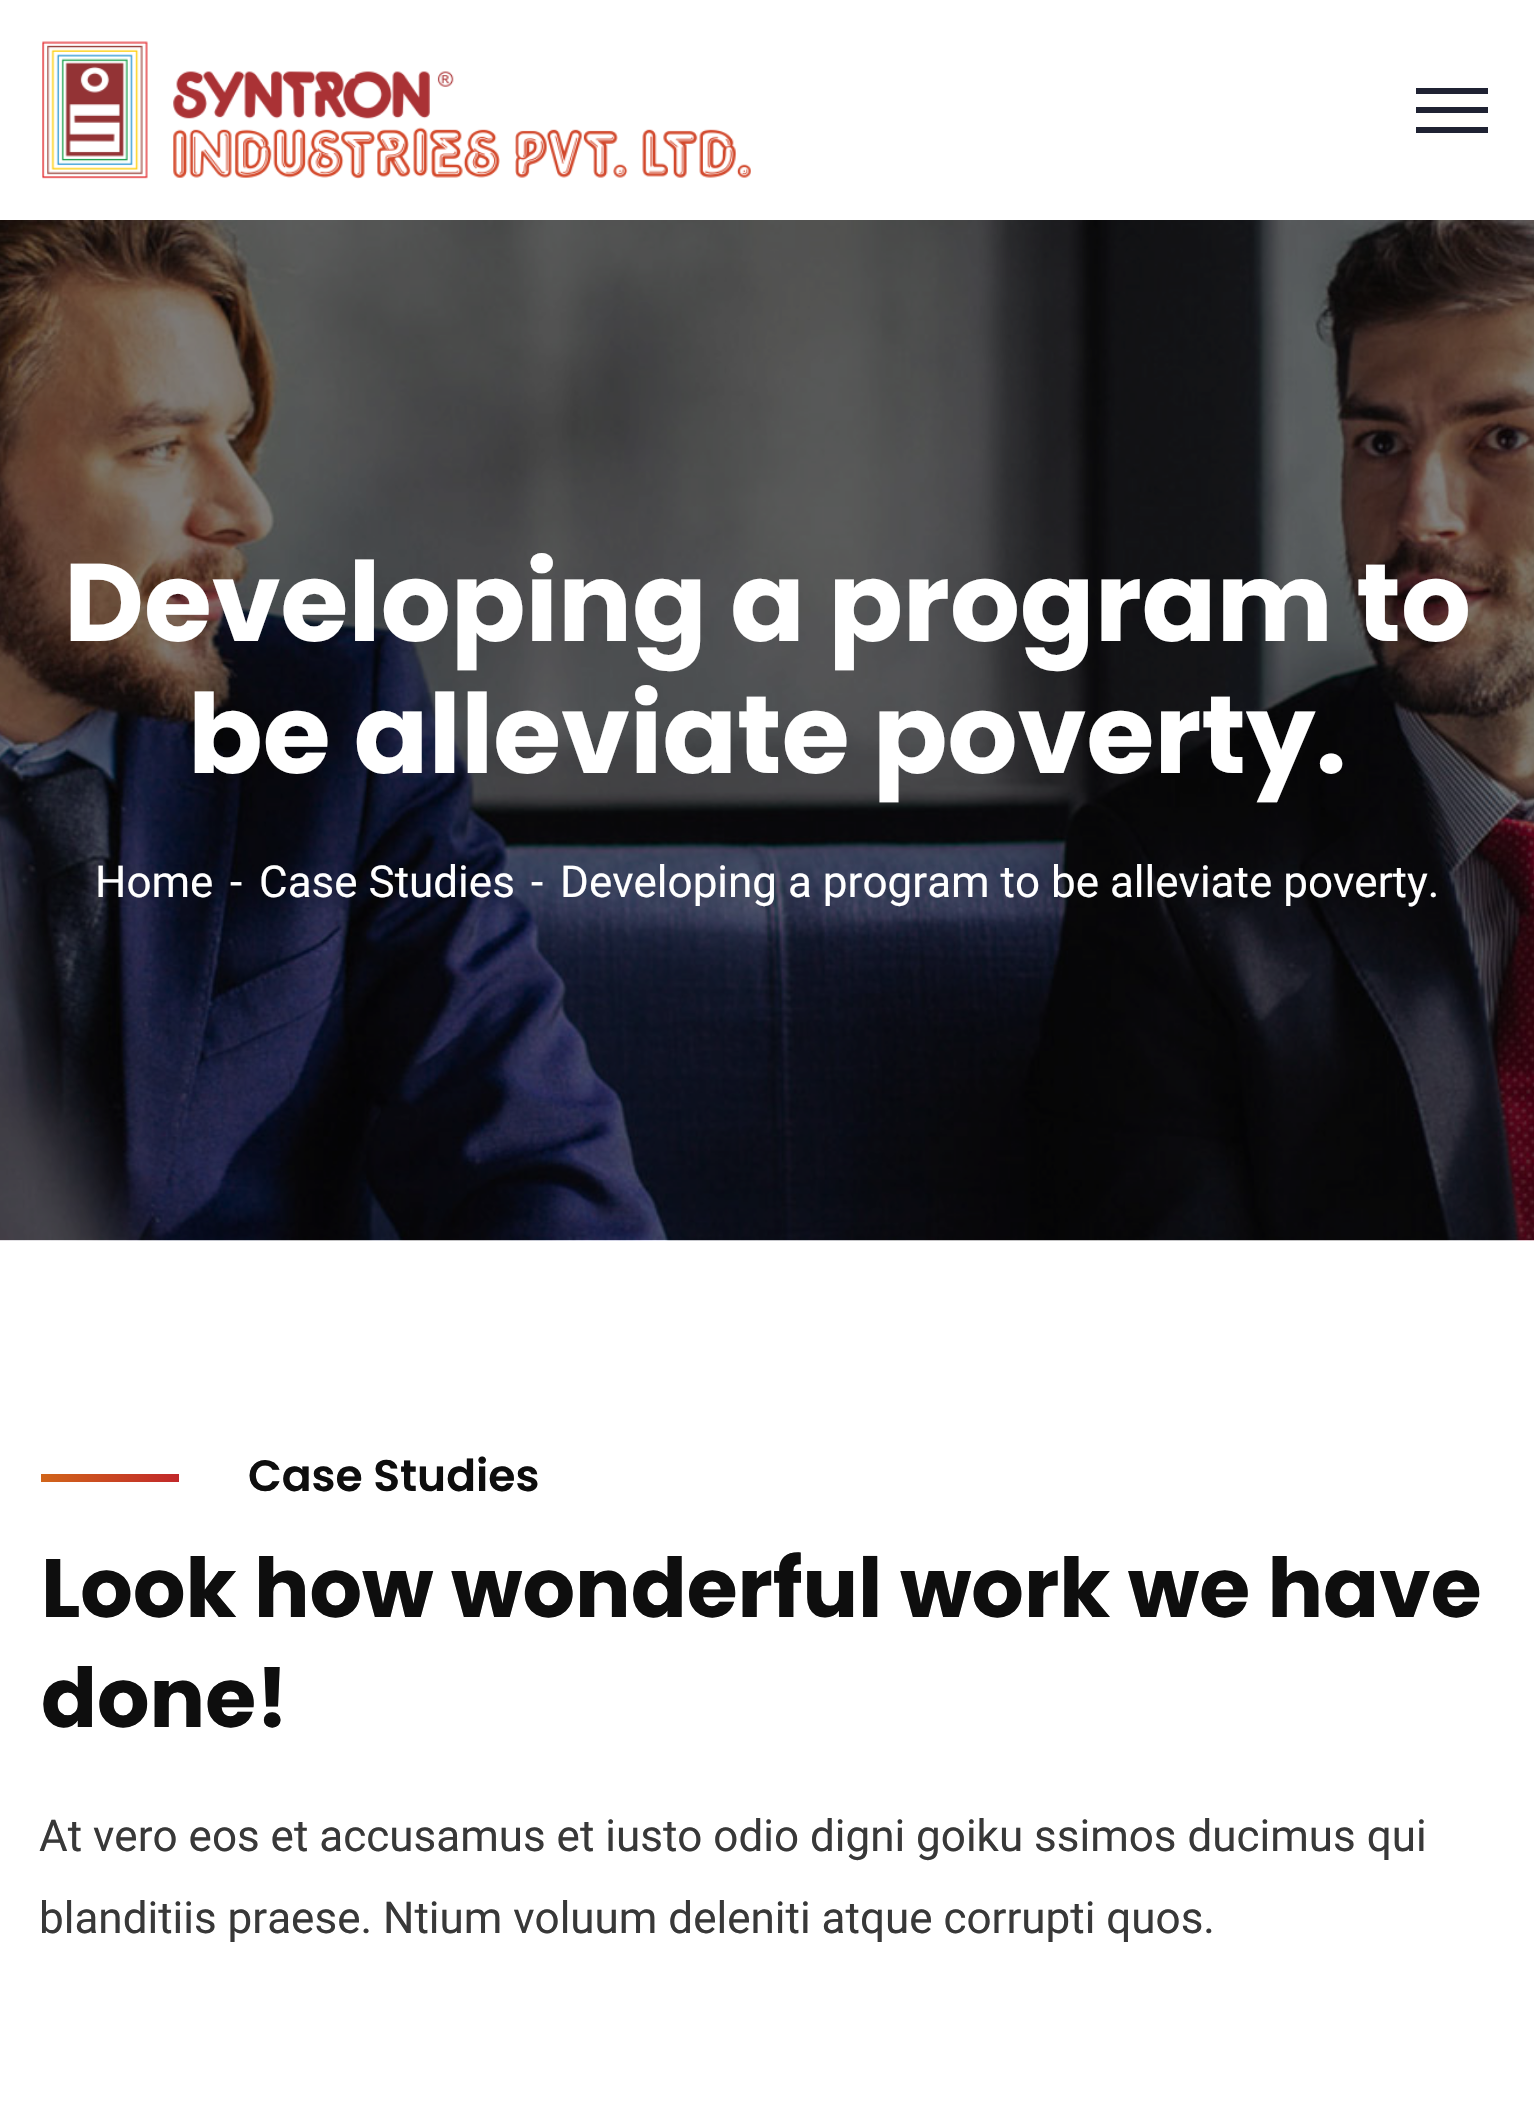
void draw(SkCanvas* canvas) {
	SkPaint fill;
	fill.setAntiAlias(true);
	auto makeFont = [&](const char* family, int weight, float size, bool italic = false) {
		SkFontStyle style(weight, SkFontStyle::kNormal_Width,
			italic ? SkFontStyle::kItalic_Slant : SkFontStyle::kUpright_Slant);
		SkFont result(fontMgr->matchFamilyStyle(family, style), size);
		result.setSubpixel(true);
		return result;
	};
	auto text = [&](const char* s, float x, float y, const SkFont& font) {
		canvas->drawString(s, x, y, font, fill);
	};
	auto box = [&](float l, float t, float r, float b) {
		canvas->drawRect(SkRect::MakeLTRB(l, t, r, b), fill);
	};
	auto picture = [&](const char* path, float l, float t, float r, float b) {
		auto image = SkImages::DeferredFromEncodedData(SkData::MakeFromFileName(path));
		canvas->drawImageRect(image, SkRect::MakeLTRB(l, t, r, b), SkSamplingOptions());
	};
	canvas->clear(0xFFFFFFFF);
	picture("image0.png", 42, 41, 751, 179);
	fill.setColor(0xFF1F2233);
	box(1416, 88, 1488, 94);
	box(1416, 107, 1488, 113);
	box(1416, 127, 1488, 133);
	picture("image1.png", 0, 220, 1534, 1241);
	{
		const SkColor colors[] = {0xFFD1651A, 0xFFC1282A};
		const float stops[] = {0, 1};
		const SkPoint ends[] = {{41, 1477}, {179, 1477}};
		fill.setShader(SkGradientShader::MakeLinear(ends, colors, stops, 2, SkTileMode::kClamp));
		fill.setAlpha(255);
	}
	box(41, 1474, 179, 1482);
	auto font1 = makeFont("Poppins", 700, 110);
	fill.setShader(nullptr);
	fill.setColor(0xFFFFFFFF);
	text("Developing a program to", 64, 641, font1);
	text("be alleviate poverty.", 188, 773, font1);
	auto font2 = makeFont("Roboto", 400, 44);
	text("Home", 95, 897, font2);
	text("-", 230, 897, font2);
	text("Case Studies", 259, 897, font2);
	text("-", 531, 897, font2);
	text("Developing a program to be alleviate poverty.", 560, 897, font2);
	auto font3 = makeFont("Poppins", 600, 44);
	fill.setColor(0xFF0E0E0E);
	text("Case Studies", 248, 1491, font3);
	auto font4 = makeFont("Poppins", 700, 82.5f);
	text("Look how wonderful work we have", 41, 1617, font4);
	text("done!", 41, 1727, font4);
	fill.setColor(0xFF383838);
	text("At vero eos et accusamus et iusto odio digni goiku ssimos ducimus qui", 39, 1851, font2);
	text("blanditiis praese. Ntium voluum deleniti atque corrupti quos.", 39, 1933, font2);
}
